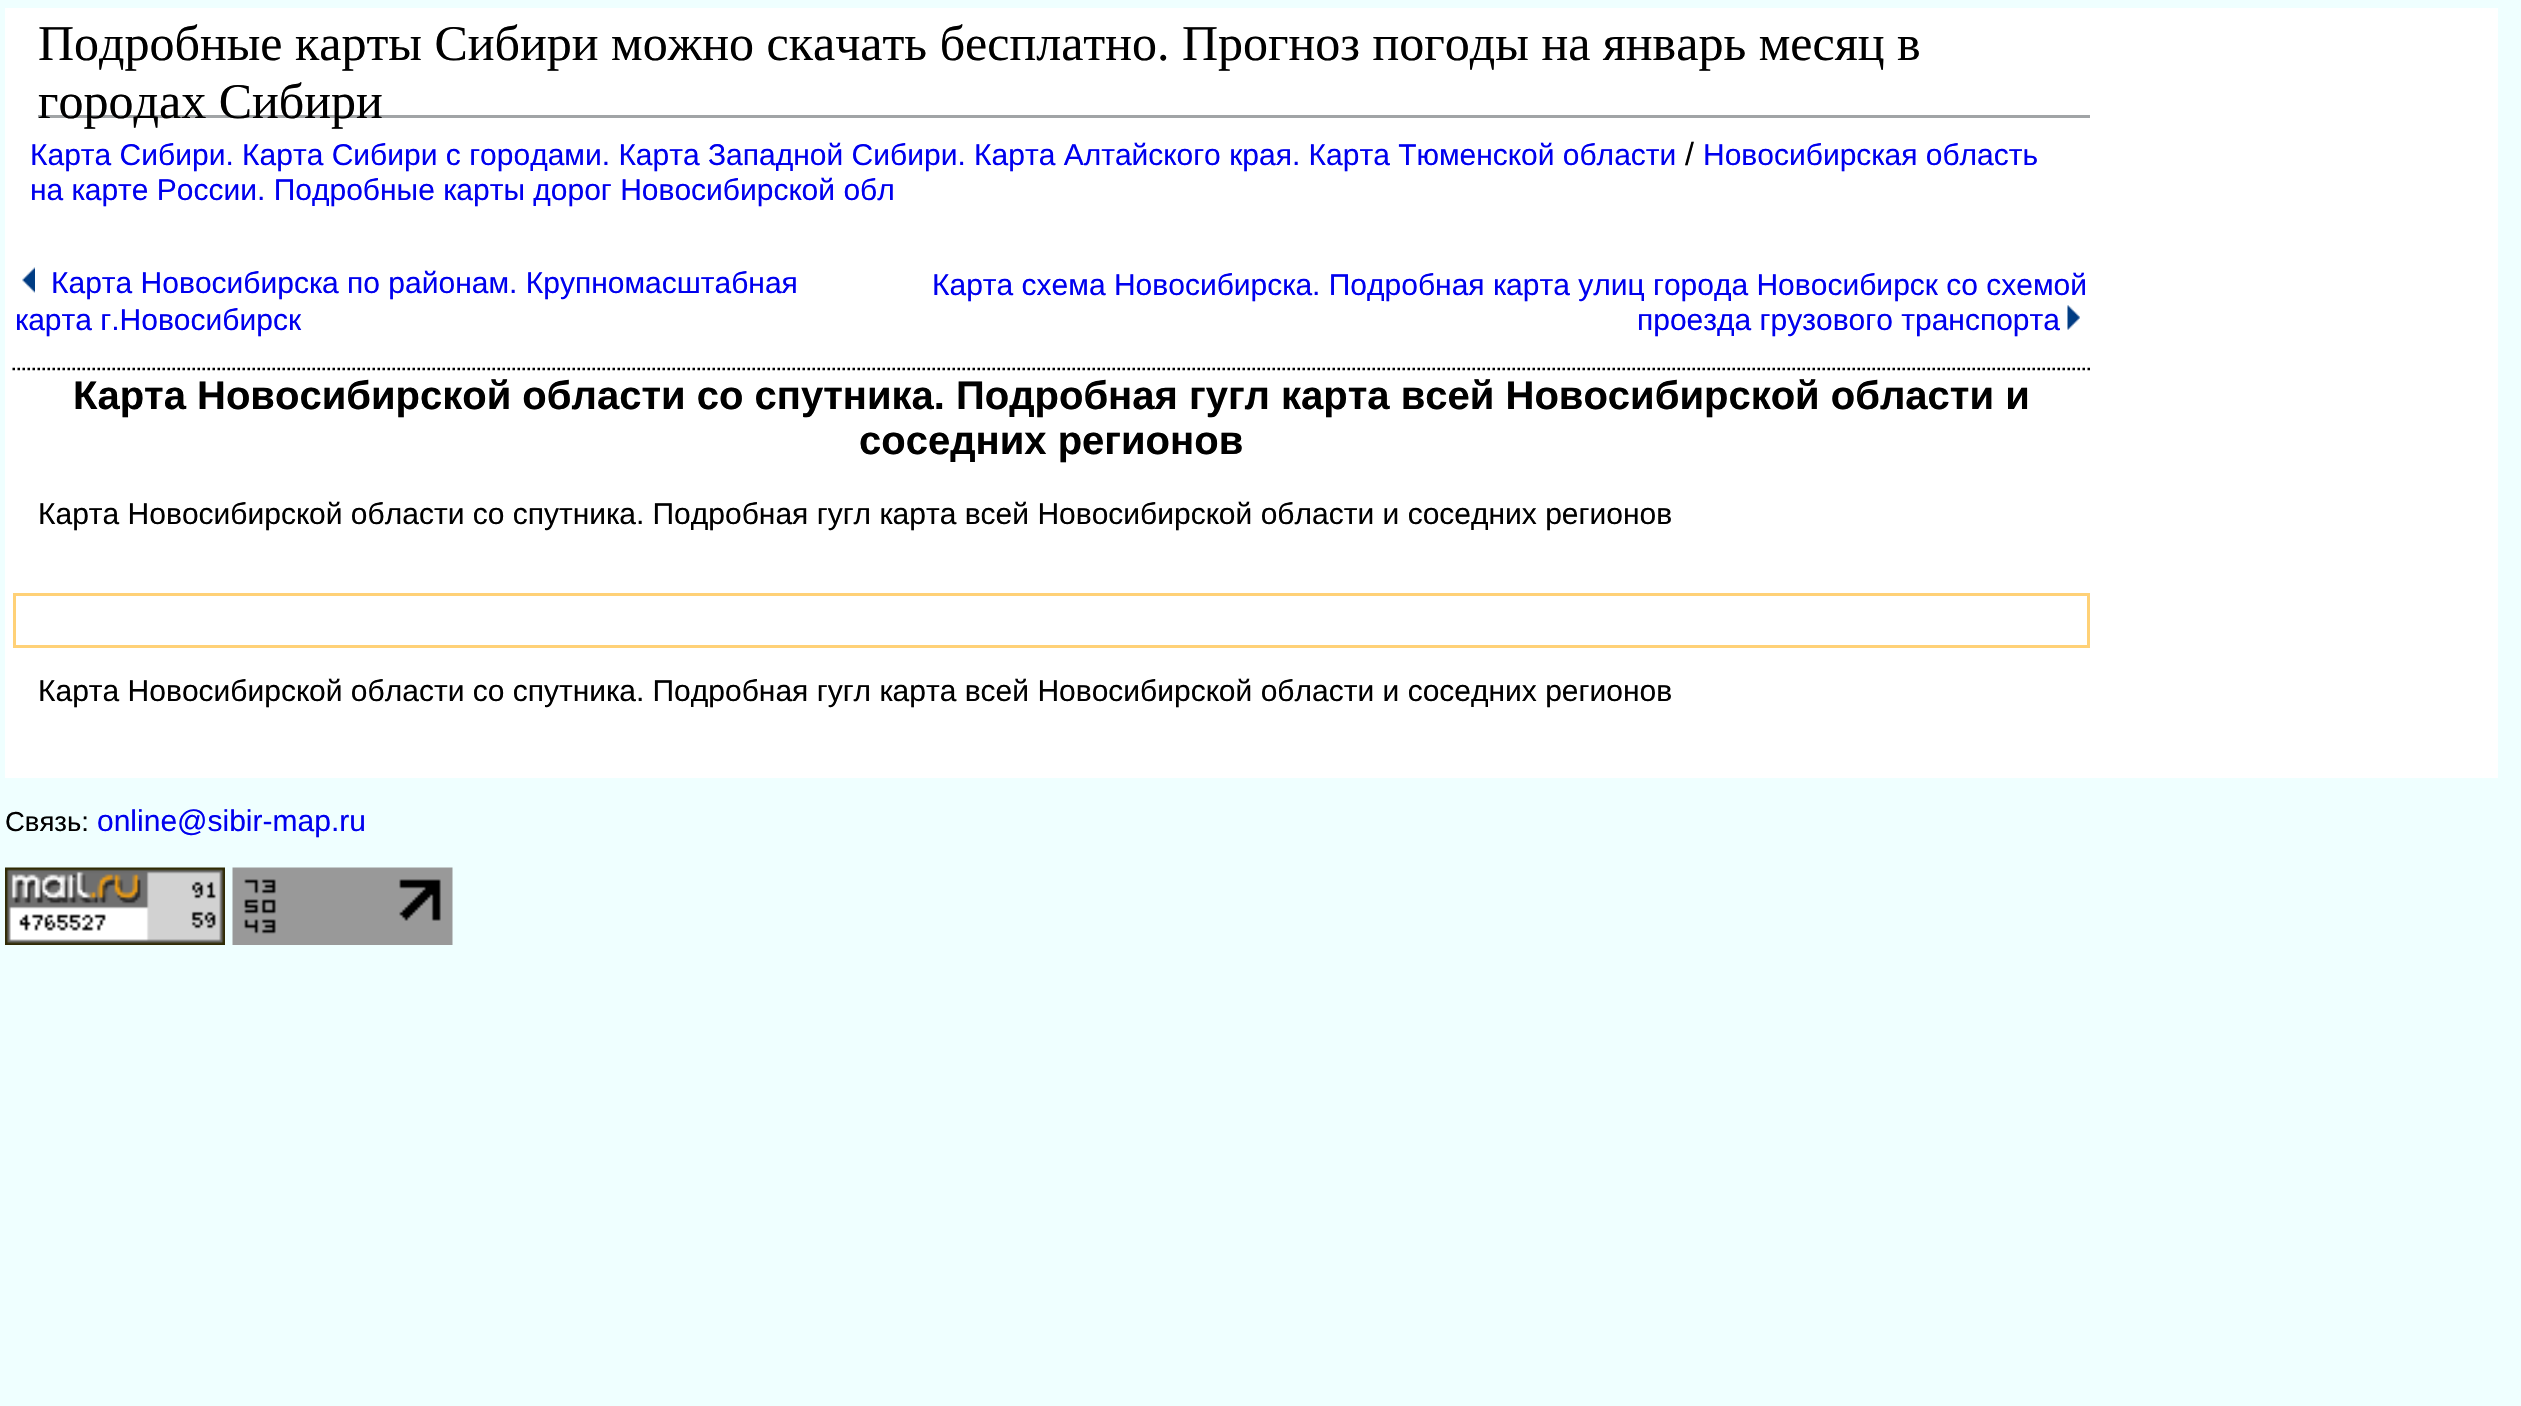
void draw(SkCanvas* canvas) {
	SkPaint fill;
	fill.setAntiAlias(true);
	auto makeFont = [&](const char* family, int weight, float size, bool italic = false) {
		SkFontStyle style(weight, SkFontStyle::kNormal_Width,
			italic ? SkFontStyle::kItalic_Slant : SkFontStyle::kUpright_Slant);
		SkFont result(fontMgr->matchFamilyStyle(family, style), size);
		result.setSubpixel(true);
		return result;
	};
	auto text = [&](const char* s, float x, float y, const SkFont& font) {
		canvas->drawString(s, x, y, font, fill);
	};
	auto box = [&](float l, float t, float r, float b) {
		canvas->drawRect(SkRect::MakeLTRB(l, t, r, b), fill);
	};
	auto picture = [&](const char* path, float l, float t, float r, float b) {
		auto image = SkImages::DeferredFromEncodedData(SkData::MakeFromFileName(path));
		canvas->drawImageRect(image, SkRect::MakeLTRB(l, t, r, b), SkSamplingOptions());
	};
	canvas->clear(0xFFEFFFFF);
	fill.setColor(0xFFFFFFFF);
	box(5, 8, 2498, 778);
	fill.setColor(0xFFA1A4A6);
	box(38, 115, 2090, 118);
	picture("image0.png", 22, 267, 35, 293);
	picture("image1.png", 2067, 305, 2080, 330);
	fill.setStyle(SkPaint::kStroke_Style);
	fill.setStrokeWidth(2.5f);
	fill.setColor(0xFF000000);
	fill.setPathEffect(SkDashPathEffect::Make({{2.5f, 2.5f}}, 0));
	canvas->drawPath(SkPathBuilder().moveTo(12.5f, 369).lineTo(2090, 369).detach(), fill);
	fill.setPathEffect(nullptr);
	fill.setStrokeWidth(3);
	fill.setColor(0xFFFFD177);
	canvas->drawRect(SkRect::MakeLTRB(14.5f, 594.5f, 2088.5f, 646.5f), fill);
	picture("image2.png", 5, 867, 225, 945);
	picture("image3.png", 232, 867, 453, 945);
	auto font1 = makeFont("Liberation Serif", 400, 50);
	fill.setStyle(SkPaint::kFill_Style);
	fill.setColor(0xFF000000);
	text("Подробные карты Сибири можно скачать бесплатно. Прогноз погоды на январь месяц в", 38, 60, font1);
	text("городах Сибири", 38, 118, font1);
	auto font2 = makeFont("Liberation Sans", 400, 30);
	fill.setColor(0xFF0000EE);
	text("Карта Сибири. Карта Сибири с городами. Карта Западной Сибири. Карта Алтайского края. Карта Тюменской области", 30, 165, font2);
	auto font3 = makeFont("Liberation Sans", 400, 32);
	fill.setColor(0xFF000000);
	text("/", 1685, 165, font3);
	fill.setColor(0xFF0000EE);
	text("Новосибирская область", 1703, 165, font2);
	text("на карте России. Подробные карты дорог Новосибирской обл", 30, 200, font2);
	text("Карта Новосибирска по районам. Крупномасштабная", 51, 293, font2);
	text("карта г.Новосибирск", 15, 330, font2);
	text("Карта схема Новосибирска. Подробная карта улиц города Новосибирск со схемой", 932, 295, font2);
	text("проезда грузового транспорта", 1637, 330, font2);
	auto font4 = makeFont("Liberation Sans", 700, 40);
	fill.setColor(0xFF000000);
	text("Карта Новосибирской области со спутника. Подробная гугл карта всей Новосибирской области и", 73, 409, font4);
	text("соседних регионов", 859, 454, font4);
	text("Карта Новосибирской области со спутника. Подробная гугл карта всей Новосибирской области и соседних регионов", 38, 524, font2);
	text("Карта Новосибирской области со спутника. Подробная гугл карта всей Новосибирской области и соседних регионов", 38, 701, font2);
	auto font5 = makeFont("Liberation Sans", 400, 27.5f);
	text("Связь:", 5, 831, font5);
	fill.setColor(0xFF0000EE);
	text("online@sibir-map.ru", 97, 831, font2);
}
